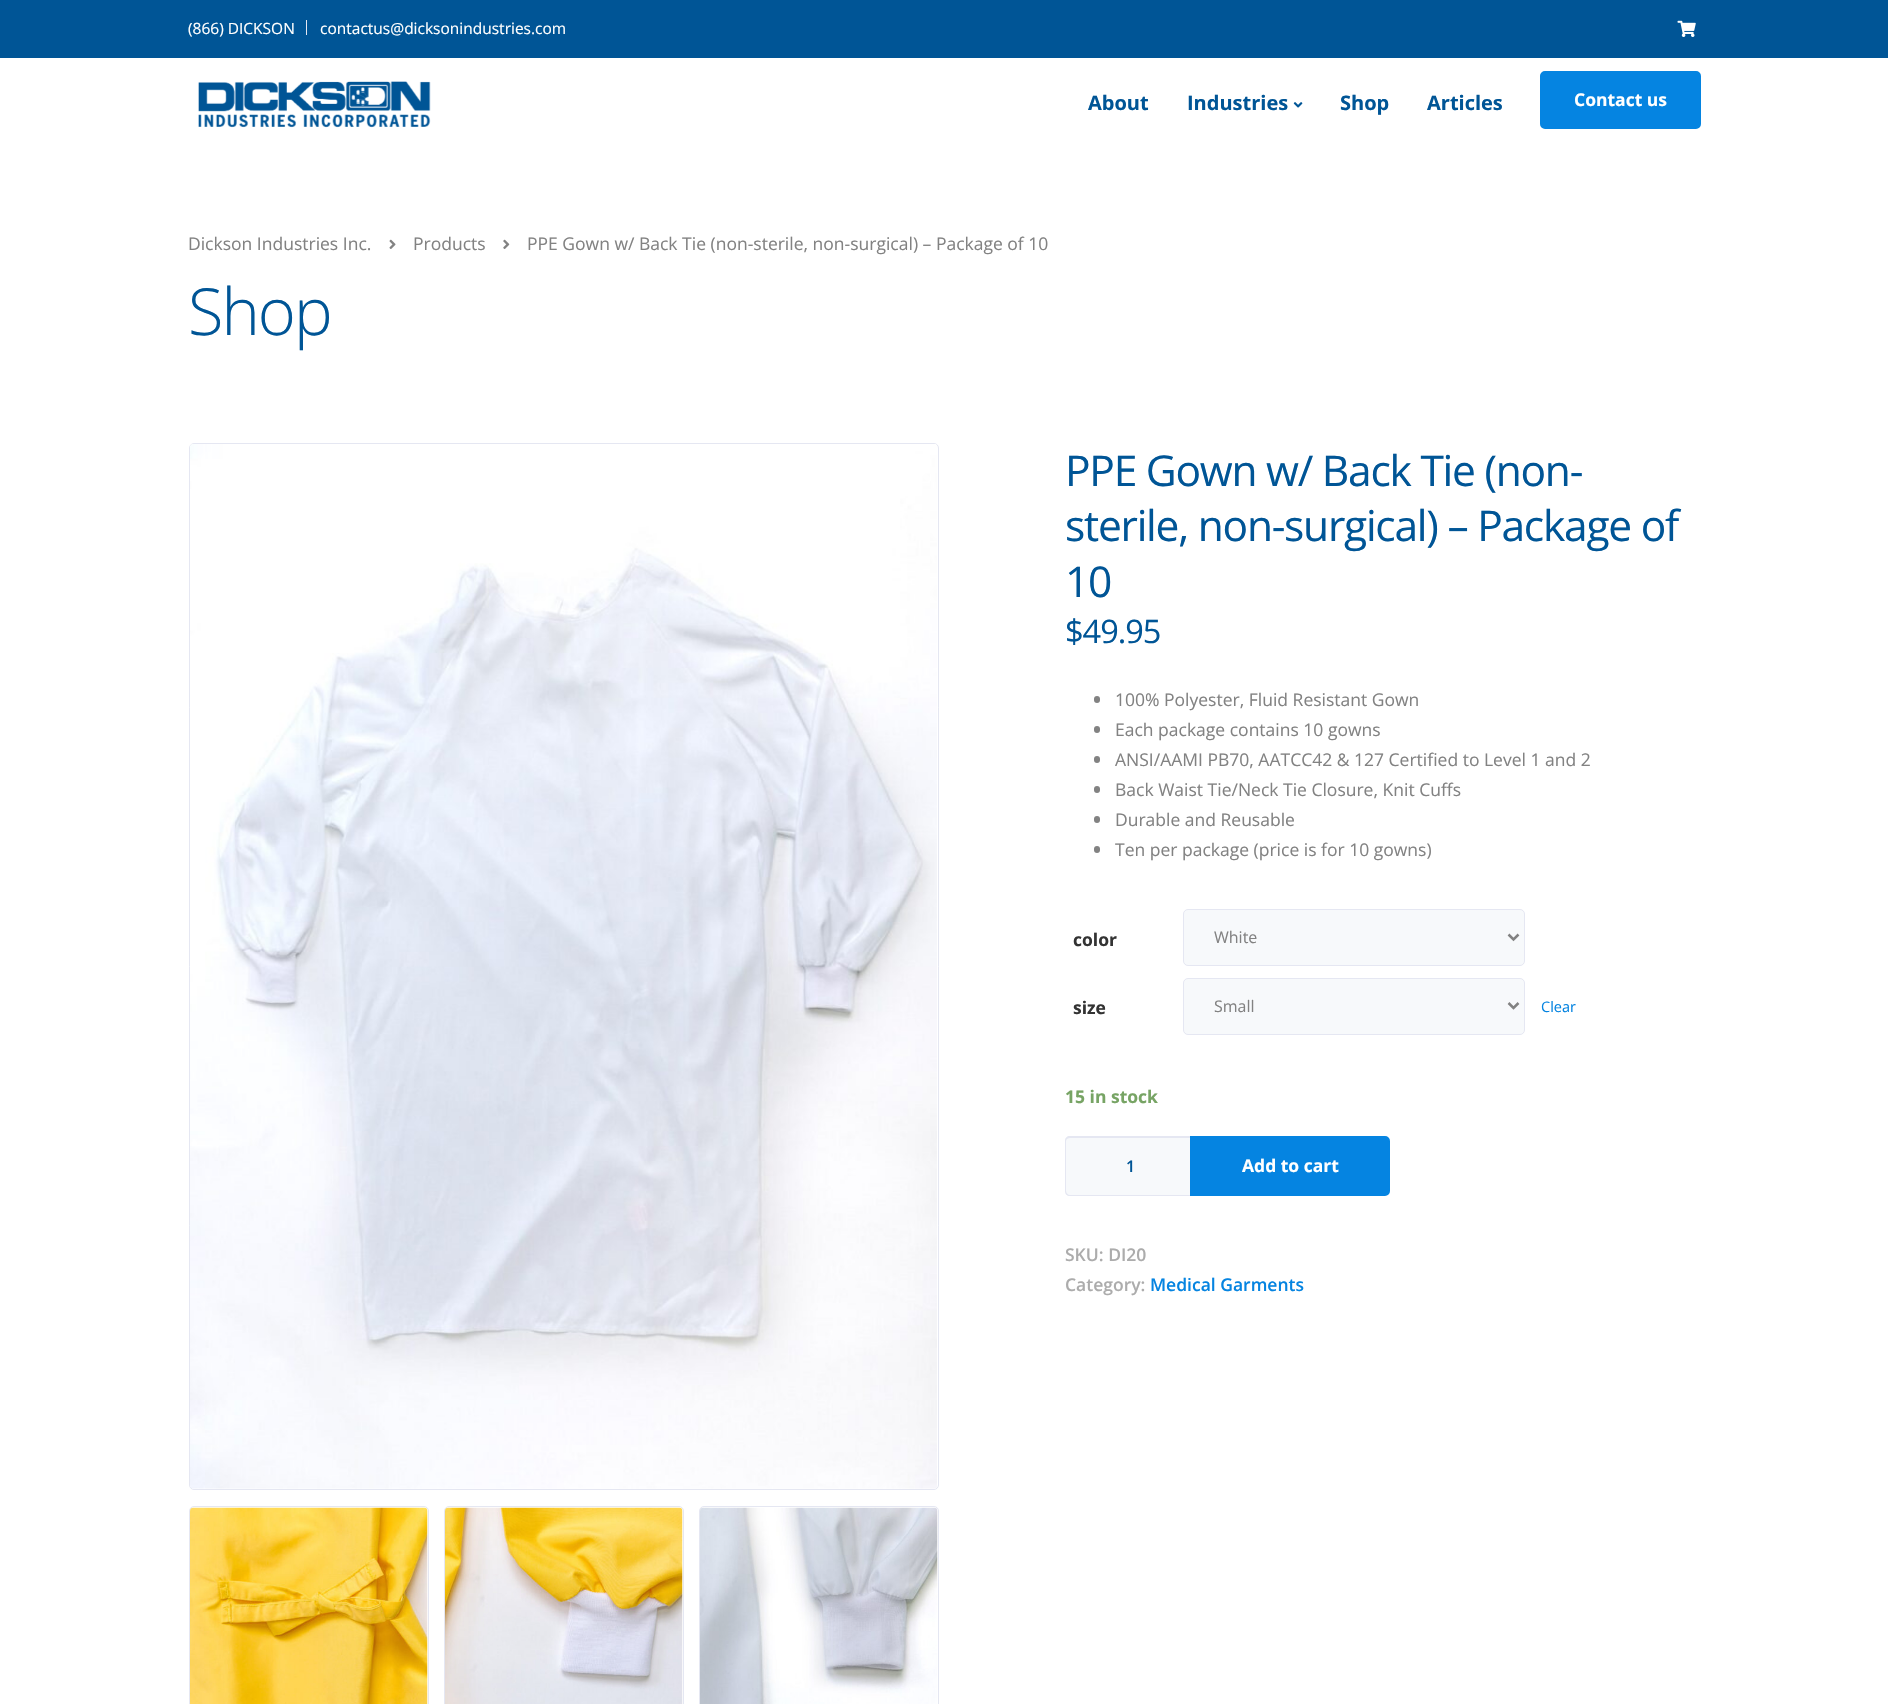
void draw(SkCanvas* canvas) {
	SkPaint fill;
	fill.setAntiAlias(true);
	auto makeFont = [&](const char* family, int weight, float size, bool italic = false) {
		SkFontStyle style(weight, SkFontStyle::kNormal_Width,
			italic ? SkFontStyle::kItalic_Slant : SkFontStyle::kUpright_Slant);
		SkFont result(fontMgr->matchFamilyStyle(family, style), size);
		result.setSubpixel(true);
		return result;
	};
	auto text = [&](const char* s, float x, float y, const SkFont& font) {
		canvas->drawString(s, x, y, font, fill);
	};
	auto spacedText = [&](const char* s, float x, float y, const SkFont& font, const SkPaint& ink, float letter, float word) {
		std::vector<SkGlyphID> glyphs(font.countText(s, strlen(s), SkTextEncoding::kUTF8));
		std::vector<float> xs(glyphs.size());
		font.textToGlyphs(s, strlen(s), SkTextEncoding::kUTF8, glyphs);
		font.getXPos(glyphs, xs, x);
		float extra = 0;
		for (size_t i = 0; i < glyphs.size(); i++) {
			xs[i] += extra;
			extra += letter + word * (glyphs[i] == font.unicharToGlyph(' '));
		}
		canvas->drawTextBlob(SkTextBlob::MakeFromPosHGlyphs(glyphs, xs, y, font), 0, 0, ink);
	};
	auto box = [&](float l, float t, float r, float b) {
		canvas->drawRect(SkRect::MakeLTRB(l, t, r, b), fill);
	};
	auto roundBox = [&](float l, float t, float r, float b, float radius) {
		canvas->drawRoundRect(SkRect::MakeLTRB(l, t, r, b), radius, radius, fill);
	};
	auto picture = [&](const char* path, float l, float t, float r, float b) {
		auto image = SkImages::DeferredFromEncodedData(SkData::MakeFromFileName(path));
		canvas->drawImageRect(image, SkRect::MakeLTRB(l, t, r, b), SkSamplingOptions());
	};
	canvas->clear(0xFFFFFFFF);
	fill.setColor(0xFF005596);
	box(0, 0, 1888, 58);
	fill.setColor(0xFFE5E7F2);
	box(306, 20, 307, 35);
	picture("image0.png", 1677, 20, 1696, 37);
	picture("image1.png", 198, 81, 431, 128);
	picture("image2.png", 1293, 102, 1303, 108);
	fill.setColor(0xFF0584E1);
	canvas->drawRoundRect(SkRect::MakeLTRB(1541.5f, 72.5f, 1699.5f, 127.5f), 3.5f, 3.5f, fill);
	fill.setStyle(SkPaint::kStroke_Style);
	fill.setStrokeWidth(3);
	canvas->drawRoundRect(SkRect::MakeLTRB(1541.5f, 72.5f, 1699.5f, 127.5f), 3.5f, 3.5f, fill);
	picture("image3.png", 389, 239, 396, 249);
	picture("image4.png", 503, 239, 510, 249);
	fill.setStrokeWidth(1);
	fill.setColor(0xFFE5E7F2);
	canvas->drawRoundRect(SkRect::MakeLTRB(189.5f, 443.5f, 938.5f, 1489.5f), 4.5f, 4.5f, fill);
	picture("image5.png", 190, 444, 937, 1489);
	canvas->drawRoundRect(SkRect::MakeLTRB(189.5f, 1506.5f, 428.5f, 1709.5f), 4.5f, 4.5f, fill);
	picture("image6.png", 190, 1507, 428, 1704);
	canvas->drawRoundRect(SkRect::MakeLTRB(444.5f, 1506.5f, 683.5f, 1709.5f), 4.5f, 4.5f, fill);
	picture("image7.png", 445, 1507, 683, 1704);
	canvas->drawRoundRect(SkRect::MakeLTRB(699.5f, 1506.5f, 938.5f, 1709.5f), 4.5f, 4.5f, fill);
	picture("image8.png", 700, 1507, 938, 1704);
	fill.setStyle(SkPaint::kFill_Style);
	fill.setColor(0xFF828282);
	roundBox(1094, 696, 1100, 703, 3);
	roundBox(1094, 726, 1100, 733, 3);
	roundBox(1094, 756, 1100, 763, 3);
	roundBox(1094, 786, 1100, 793, 3);
	roundBox(1094, 816, 1100, 823, 3);
	roundBox(1094, 846, 1100, 853, 3);
	fill.setColor(0xFFF7F9FB);
	canvas->drawRoundRect(SkRect::MakeLTRB(1183.5f, 909.5f, 1524.5f, 965.5f), 4.5f, 4.5f, fill);
	fill.setStyle(SkPaint::kStroke_Style);
	fill.setColor(0xFFE5E7F2);
	canvas->drawRoundRect(SkRect::MakeLTRB(1183.5f, 909.5f, 1524.5f, 965.5f), 4.5f, 4.5f, fill);
	fill.setStrokeWidth(2.5f);
	fill.setColor(0xFF828282);
	canvas->drawPath(SkPathBuilder().moveTo(1508.5f, 934.5f).lineTo(1513.5f, 939.5f).lineTo(1518.5f, 934.5f).detach(), fill);
	fill.setStyle(SkPaint::kFill_Style);
	fill.setColor(0xFFF7F9FB);
	canvas->drawRoundRect(SkRect::MakeLTRB(1183.5f, 978.5f, 1524.5f, 1034.5f), 4.5f, 4.5f, fill);
	fill.setStyle(SkPaint::kStroke_Style);
	fill.setStrokeWidth(1);
	fill.setColor(0xFFE5E7F2);
	canvas->drawRoundRect(SkRect::MakeLTRB(1183.5f, 978.5f, 1524.5f, 1034.5f), 4.5f, 4.5f, fill);
	fill.setStrokeWidth(2.5f);
	fill.setColor(0xFF828282);
	canvas->drawPath(SkPathBuilder().moveTo(1508.5f, 1003).lineTo(1513.5f, 1008).lineTo(1518.5f, 1003).detach(), fill);
	fill.setStyle(SkPaint::kFill_Style);
	fill.setColor(0xFFF7F9FB);
	canvas->drawPath(SkPathBuilder().moveTo(1070, 1136).lineTo(1190, 1136).lineTo(1190, 1196).lineTo(1070, 1196).cubicTo(1067, 1196, 1065, 1194, 1065, 1191).lineTo(1065, 1141).cubicTo(1065, 1138, 1067, 1136, 1070, 1136).close().detach(), fill);
	fill.setColor(0xFFE5E7F2);
	canvas->drawPath(SkPathBuilder(SkPathFillType::kEvenOdd).moveTo(1070, 1136).lineTo(1190, 1136).lineTo(1190, 1196).lineTo(1070, 1196).cubicTo(1067, 1196, 1065, 1194, 1065, 1191).lineTo(1065, 1141).cubicTo(1065, 1138, 1067, 1136, 1070, 1136).close().moveTo(1070, 1138).lineTo(1190, 1138).lineTo(1190, 1195).lineTo(1070, 1195).cubicTo(1068, 1195, 1066, 1193, 1066, 1191).lineTo(1066, 1141).cubicTo(1066, 1139, 1068, 1138, 1070, 1138).close().detach(), fill);
	fill.setColor(0xFF0584E1);
	canvas->drawPath(SkPathBuilder().moveTo(1191.5f, 1137.5f).lineTo(1385, 1137.5f).cubicTo(1387, 1137.5f, 1388.5f, 1139, 1388.5f, 1141).lineTo(1388.5f, 1191).cubicTo(1388.5f, 1193, 1387, 1194.5f, 1385, 1194.5f).lineTo(1191.5f, 1194.5f).close().detach(), fill);
	fill.setStyle(SkPaint::kStroke_Style);
	fill.setStrokeWidth(3);
	canvas->drawPath(SkPathBuilder().moveTo(1191.5f, 1137.5f).lineTo(1385, 1137.5f).cubicTo(1387, 1137.5f, 1388.5f, 1139, 1388.5f, 1141).lineTo(1388.5f, 1191).cubicTo(1388.5f, 1193, 1387, 1194.5f, 1385, 1194.5f).lineTo(1191.5f, 1194.5f).close().detach(), fill);
	auto font1 = makeFont("Open Sans", 400, 15.5f);
	fill.setStyle(SkPaint::kFill_Style);
	fill.setColor(0xFFFFFFFF);
	text("(866) DICKSON", 188, 34, font1);
	text("contactus@dicksonindustries.com", 320, 34, font1);
	auto font2 = makeFont("Open Sans", 700, 20);
	fill.setColor(0xFF005596);
	text("About", 1088, 110, font2);
	text("Industries", 1187, 110, font2);
	text("Shop", 1340, 110, font2);
	text("Articles", 1427, 110, font2);
	auto font3 = makeFont("Open Sans", 700, 17.5f);
	fill.setColor(0xFFFFFFFF);
	text("Contact us", 1574, 106, font3);
	auto font4 = makeFont("Open Sans", 400, 17.5f);
	fill.setColor(0xFF828282);
	text("Dickson Industries Inc.", 188, 250, font4);
	text("Products", 413, 250, font4);
	text("PPE Gown w/ Back Tie (non-sterile, non-surgical) – Package of 10", 527, 250, font4);
	auto font5 = makeFont("Open Sans", 300, 65);
	fill.setColor(0xFF005596);
	spacedText("Shop", 188, 335, font5, fill, -2, 0);
	auto font6 = makeFont("Open Sans", 400, 42.5f);
	spacedText("PPE Gown w/ Back Tie (non-", 1065, 486, font6, fill, -1.25f, 0);
	spacedText("sterile, non-surgical) – Package of", 1065, 541, font6, fill, -1.25f, 0);
	spacedText("10", 1065, 597, font6, fill, -1.25f, 0);
	auto font7 = makeFont("Open Sans", 400, 32.5f);
	spacedText("$49.95", 1065, 643, font7, fill, -1, 0);
	fill.setColor(0xFF828282);
	text("100% Polyester, Fluid Resistant Gown", 1115, 706, font4);
	text("Each package contains 10 gowns", 1115, 736, font4);
	text("ANSI/AAMI PB70, AATCC42 & 127 Certified to Level 1 and 2", 1115, 766, font4);
	text("Back Waist Tie/Neck Tie Closure, Knit Cuffs", 1115, 796, font4);
	text("Durable and Reusable", 1115, 826, font4);
	text("Ten per package (price is for 10 gowns)", 1115, 856, font4);
	fill.setColor(0xFF333333);
	text("color", 1073, 946, font3);
	auto font8 = makeFont("Open Sans", 400, 16);
	fill.setColor(0xFF828282);
	text("White", 1214, 943, font8);
	fill.setColor(0xFF333333);
	text("size", 1073, 1014, font3);
	fill.setColor(0xFF828282);
	text("Small", 1214, 1012, font8);
	auto font9 = makeFont("Open Sans", 400, 14.5f);
	fill.setColor(0xFF0584E1);
	text("Clear", 1541, 1012, font9);
	fill.setColor(0xFF77A464);
	text("15 in stock", 1065, 1103, font3);
	auto font10 = makeFont("Open Sans", 600, 16);
	fill.setColor(0xFF005596);
	text("1", 1126, 1172, font10);
	fill.setColor(0xFFFFFFFF);
	text("Add to cart", 1242, 1172, font3);
	auto font11 = makeFont("Open Sans", 600, 17.5f);
	fill.setColor(0xFFACACAC);
	text("SKU: DI20", 1065, 1261, font11);
	text("Category:", 1065, 1291, font11);
	fill.setColor(0xFF0584E1);
	text("Medical Garments", 1150, 1291, font11);
}
